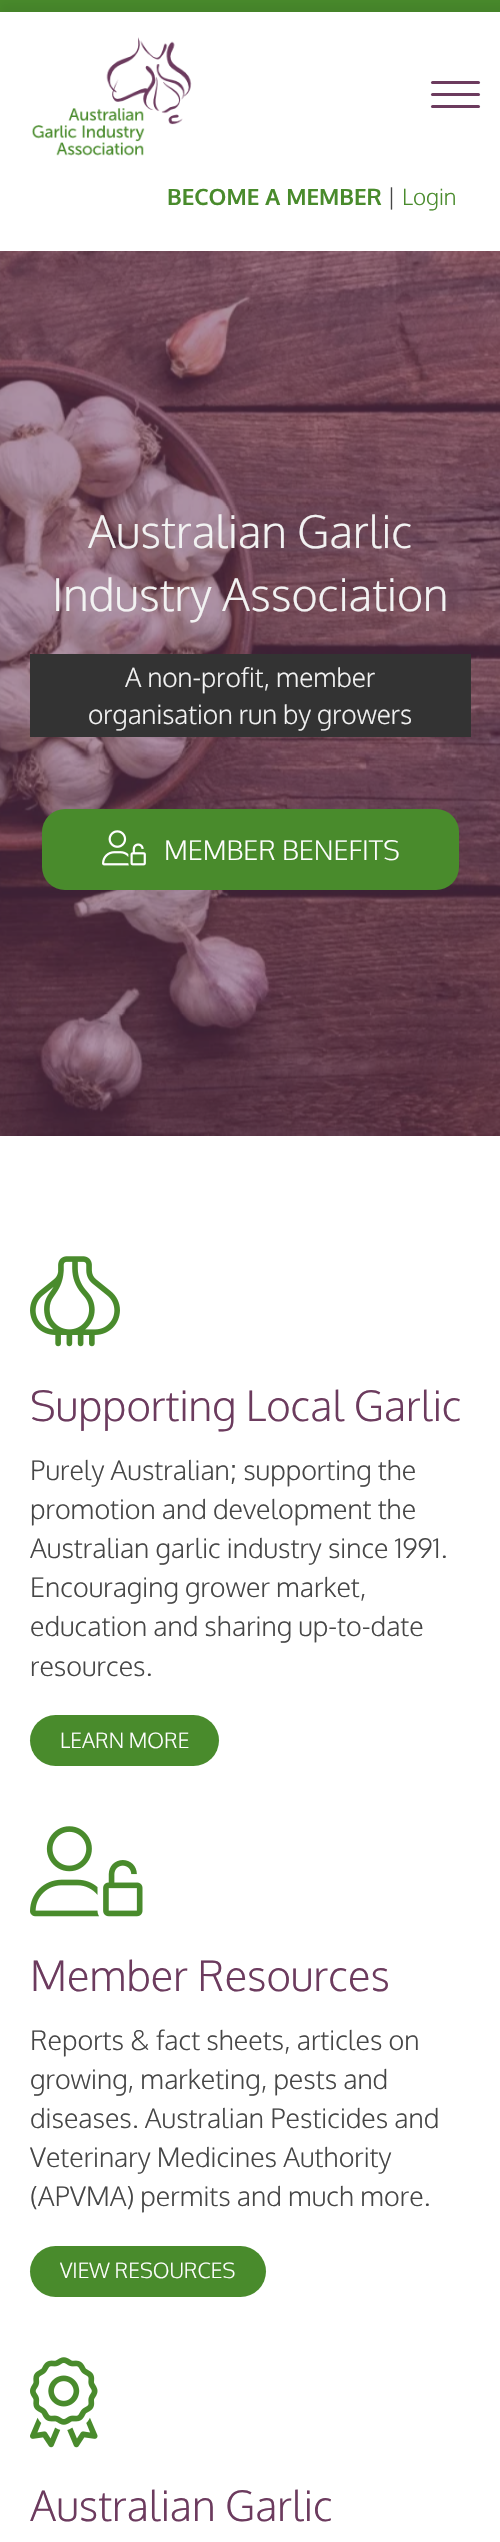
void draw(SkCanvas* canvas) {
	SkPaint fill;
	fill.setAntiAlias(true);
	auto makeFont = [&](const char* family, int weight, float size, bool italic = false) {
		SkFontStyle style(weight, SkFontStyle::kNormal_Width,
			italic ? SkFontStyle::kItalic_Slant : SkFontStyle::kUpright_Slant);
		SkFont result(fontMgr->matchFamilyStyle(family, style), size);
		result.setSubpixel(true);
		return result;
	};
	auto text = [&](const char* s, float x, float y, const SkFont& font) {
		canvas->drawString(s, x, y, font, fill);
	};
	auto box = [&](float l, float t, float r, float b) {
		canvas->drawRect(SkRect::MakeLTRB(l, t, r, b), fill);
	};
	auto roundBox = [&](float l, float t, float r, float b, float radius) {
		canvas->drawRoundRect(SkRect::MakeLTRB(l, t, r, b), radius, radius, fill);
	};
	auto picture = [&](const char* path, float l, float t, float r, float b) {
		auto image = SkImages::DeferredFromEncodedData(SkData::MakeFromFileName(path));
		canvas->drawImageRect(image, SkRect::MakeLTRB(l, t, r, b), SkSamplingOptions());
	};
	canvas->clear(0xFFFFFFFF);
	fill.setColor(0xFF498B2C);
	box(0, 0, 500, 12);
	fill.setColor(0x0F000000);
	fill.setMaskFilter(SkMaskFilter::MakeBlur(kNormal_SkBlurStyle, 4.5f));
	canvas->drawRect(SkRect::MakeLTRB(-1, 3, 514, 260), fill);
	fill.setMaskFilter(nullptr);
	fill.setColor(0xFFFFFFFF);
	box(0, 12, 500, 251);
	picture("image0.png", 32, 37, 192, 156);
	fill.setColor(0xFF6C3B5E);
	roundBox(431, 93, 480, 96, 1.5f);
	roundBox(431, 81, 480, 84, 1.5f);
	roundBox(431, 105, 480, 108, 1.5f);
	picture("image1.png", 0, 251, 500, 1136);
	fill.setColor(0xFF333333);
	box(30, 654, 471, 737);
	fill.setColor(0xFF498B2C);
	roundBox(42, 809, 459, 890, 23);
	picture("image2.png", 102, 830, 146, 866);
	picture("image3.png", 30, 1256, 120, 1347);
	roundBox(30, 1715, 219, 1766, 25.5f);
	picture("image4.png", 30, 1826, 143, 1917);
	roundBox(30, 2246, 266, 2297, 25.5f);
	picture("image5.png", 30, 2357, 98, 2448);
	auto font1 = makeFont("Oxygen", 700, 22.5f);
	text("BECOME A MEMBER", 167, 205, font1);
	auto font2 = makeFont("Oxygen", 300, 22.5f);
	fill.setColor(0xFF464646);
	text("|", 387, 205, font2);
	fill.setColor(0xFF498B2C);
	text("Login", 402, 205, font2);
	auto font3 = makeFont("Oxygen", 300, 45);
	fill.setColor(0xFFF2F2F2);
	text("Australian Garlic", 88, 548, font3);
	text("Industry Association", 52, 611, font3);
	auto font4 = makeFont("Oxygen", 300, 26.4f);
	text("A non-profit, member", 125, 687, font4);
	text("organisation run by growers", 88, 724, font4);
	auto font5 = makeFont("Oxygen", 300, 27);
	fill.setColor(0xFFFFFFFF);
	text("MEMBER BENEFITS", 164, 860, font5);
	auto font6 = makeFont("Oxygen", 300, 42);
	fill.setColor(0xFF6C3B5E);
	text("Supporting Local Garlic", 30, 1421, font6);
	fill.setColor(0xFF464646);
	text("Purely Australian; supporting the", 30, 1480, font5);
	text("promotion and development the", 30, 1519, font5);
	text("Australian garlic industry since 1991.", 30, 1558, font5);
	text("Encouraging grower market,", 30, 1597, font5);
	text("education and sharing up-to-date", 30, 1636, font5);
	text("resources.", 30, 1676, font5);
	auto font7 = makeFont("Oxygen", 300, 21);
	fill.setColor(0xFFFFFFFF);
	text("LEARN MORE", 60, 1748, font7);
	fill.setColor(0xFF6C3B5E);
	text("Member Resources", 30, 1991, font6);
	fill.setColor(0xFF464646);
	text("Reports & fact sheets, articles on", 30, 2050, font5);
	text("growing, marketing, pests and", 30, 2089, font5);
	text("diseases. Australian Pesticides and", 30, 2128, font5);
	text("Veterinary Medicines Authority", 30, 2167, font5);
	text("(APVMA) permits and much more.", 30, 2206, font5);
	fill.setColor(0xFFFFFFFF);
	text("VIEW RESOURCES", 60, 2278, font7);
	fill.setColor(0xFF6C3B5E);
	text("Australian Garlic", 30, 2521, font6);
}
